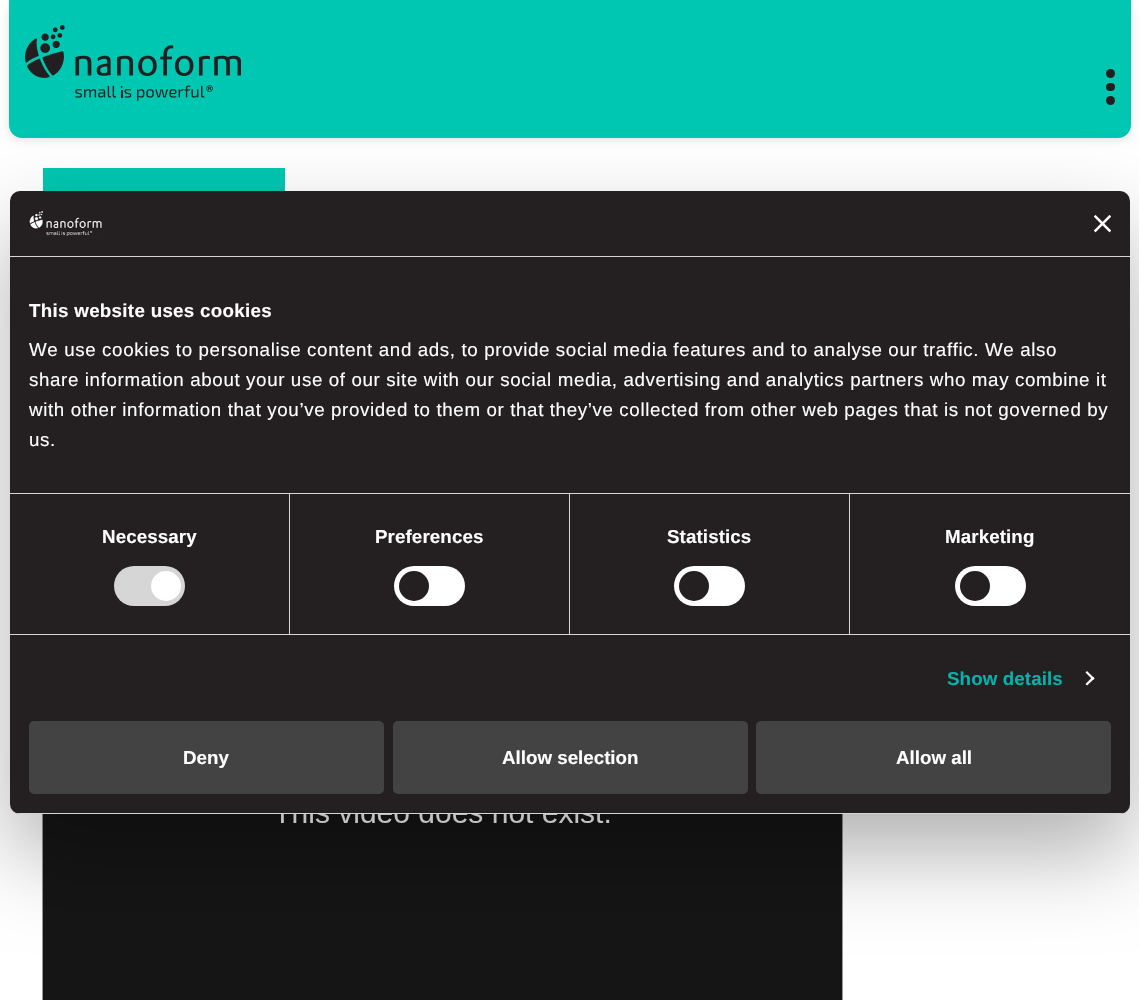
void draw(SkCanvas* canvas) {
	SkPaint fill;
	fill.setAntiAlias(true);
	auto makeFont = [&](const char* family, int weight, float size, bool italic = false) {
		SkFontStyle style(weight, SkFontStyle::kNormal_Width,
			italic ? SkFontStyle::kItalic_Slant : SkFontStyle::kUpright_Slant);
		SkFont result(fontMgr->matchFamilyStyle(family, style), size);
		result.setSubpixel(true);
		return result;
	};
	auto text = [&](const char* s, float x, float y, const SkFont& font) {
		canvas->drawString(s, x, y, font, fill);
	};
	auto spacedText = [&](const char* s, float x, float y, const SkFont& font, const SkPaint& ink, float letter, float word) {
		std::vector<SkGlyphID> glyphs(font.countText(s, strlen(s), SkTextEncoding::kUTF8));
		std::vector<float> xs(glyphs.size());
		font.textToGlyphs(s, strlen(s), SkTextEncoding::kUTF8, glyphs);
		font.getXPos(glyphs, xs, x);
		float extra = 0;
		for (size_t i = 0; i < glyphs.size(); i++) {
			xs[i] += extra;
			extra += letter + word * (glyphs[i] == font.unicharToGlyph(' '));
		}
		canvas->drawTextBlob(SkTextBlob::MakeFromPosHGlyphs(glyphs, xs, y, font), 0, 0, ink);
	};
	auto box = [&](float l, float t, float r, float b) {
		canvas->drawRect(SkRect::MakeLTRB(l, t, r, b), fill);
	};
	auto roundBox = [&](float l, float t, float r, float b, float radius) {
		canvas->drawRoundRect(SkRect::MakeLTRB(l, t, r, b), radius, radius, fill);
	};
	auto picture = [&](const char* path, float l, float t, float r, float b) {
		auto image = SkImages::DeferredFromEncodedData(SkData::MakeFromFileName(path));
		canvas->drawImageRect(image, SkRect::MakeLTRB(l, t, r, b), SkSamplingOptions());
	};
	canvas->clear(0xFFFFFFFF);
	fill.setColor(0x1C000000);
	fill.setMaskFilter(SkMaskFilter::MakeBlur(kNormal_SkBlurStyle, 5));
	canvas->drawRoundRect(SkRect::MakeLTRB(9, 3, 1131, 140), 13, 13, fill);
	fill.setMaskFilter(nullptr);
	fill.setColor(0xFF00C7B1);
	canvas->drawPath(SkPathBuilder().moveTo(9, 0).lineTo(1131, 0).lineTo(1131, 125).cubicTo(1131, 132, 1125, 138, 1118, 138).lineTo(22, 138).cubicTo(15, 138, 9, 132, 9, 125).close().detach(), fill);
	picture("image0.png", 25, 25, 241, 101);
	fill.setColor(0xFF231F20);
	roundBox(1106, 83, 1115, 91, 4);
	canvas->drawCircle(1110.5f, 73.5f, 4.5f, fill);
	canvas->drawCircle(1110.5f, 100.5f, 4.5f, fill);
	fill.setColor(0xFF00C7B1);
	box(43, 168, 285, 191);
	picture("image1.png", 42, 814, 843, 1000);
	fill.setColor(0x4D000000);
	fill.setMaskFilter(SkMaskFilter::MakeBlur(kNormal_SkBlurStyle, 42.5f));
	canvas->drawRoundRect(SkRect::MakeLTRB(10, 231, 1130, 854), 10, 10, fill);
	fill.setMaskFilter(nullptr);
	fill.setColor(0xFF241F20);
	roundBox(10, 191, 1130, 814, 10);
	fill.setColor(0xFFD6D6D6);
	box(10, 256, 1130, 257);
	picture("image2.png", 28, 211, 102, 237);
	picture("image3.png", 1094, 215, 1111, 233);
	box(10, 493, 1130, 494);
	box(10, 634, 1130, 635);
	box(289, 494, 290, 634);
	roundBox(114, 566, 185, 606, 20);
	fill.setColor(0xFFFFFFFF);
	canvas->drawCircle(166, 586, 15, fill);
	fill.setColor(0xFFD6D6D6);
	box(569, 494, 570, 634);
	fill.setColor(0xFFFFFFFF);
	roundBox(394, 566, 465, 606, 20);
	fill.setColor(0xFF241F20);
	canvas->drawCircle(414, 586, 15, fill);
	fill.setColor(0xFFD6D6D6);
	box(849, 494, 850, 634);
	fill.setColor(0xFFFFFFFF);
	roundBox(674, 566, 745, 606, 20);
	fill.setColor(0xFF241F20);
	canvas->drawCircle(694, 586, 15, fill);
	fill.setColor(0xFFFFFFFF);
	roundBox(955, 566, 1026, 606, 20);
	fill.setColor(0xFF241F20);
	canvas->drawCircle(975, 586, 15, fill);
	fill.setColor(0xFFFFFFFF);
	canvas->drawPath(SkPathBuilder().moveTo(1087, 671).lineTo(1094.5f, 678.5f).lineTo(1093, 680).lineTo(1085.5f, 672.5f).close().detach(), fill);
	canvas->drawPath(SkPathBuilder().moveTo(1093, 676.5f).lineTo(1094.5f, 678.5f).lineTo(1087, 685.5f).lineTo(1085.5f, 684).close().detach(), fill);
	canvas->save();
	canvas->clipPath(SkPathBuilder().moveTo(20, 191).lineTo(1120, 191).cubicTo(1125.5f, 191, 1130, 195.5f, 1130, 201).lineTo(1130, 804).cubicTo(1130, 809.5f, 1125.5f, 814, 1120, 814).lineTo(20, 814).cubicTo(14.5f, 814, 10, 809.5f, 10, 804).lineTo(10, 201).cubicTo(10, 195.5f, 14.5f, 191, 20, 191).close().detach(), true);
	fill.setColor(0xFFD6D6D6);
	box(10, 813, 1130, 814);
	canvas->restore();
	fill.setColor(0xFF434343);
	canvas->drawRoundRect(SkRect::MakeLTRB(30.5f, 722.5f, 382.5f, 792.5f), 3.5f, 3.5f, fill);
	fill.setStyle(SkPaint::kStroke_Style);
	fill.setStrokeWidth(3);
	canvas->drawRoundRect(SkRect::MakeLTRB(30.5f, 722.5f, 382.5f, 792.5f), 3.5f, 3.5f, fill);
	fill.setStyle(SkPaint::kFill_Style);
	canvas->drawRoundRect(SkRect::MakeLTRB(394.5f, 722.5f, 746.5f, 792.5f), 3.5f, 3.5f, fill);
	fill.setStyle(SkPaint::kStroke_Style);
	canvas->drawRoundRect(SkRect::MakeLTRB(394.5f, 722.5f, 746.5f, 792.5f), 3.5f, 3.5f, fill);
	fill.setStyle(SkPaint::kFill_Style);
	canvas->drawRoundRect(SkRect::MakeLTRB(757.5f, 722.5f, 1109.5f, 792.5f), 3.5f, 3.5f, fill);
	fill.setStyle(SkPaint::kStroke_Style);
	canvas->drawRoundRect(SkRect::MakeLTRB(757.5f, 722.5f, 1109.5f, 792.5f), 3.5f, 3.5f, fill);
	auto font1 = makeFont("Liberation Sans", 700, 18.75f);
	fill.setStyle(SkPaint::kFill_Style);
	fill.setColor(0xFFFFFFFF);
	spacedText("This website uses cookies", 29, 317, font1, fill, 0.3f, 0);
	auto font2 = makeFont("Liberation Sans", 400, 18.75f);
	spacedText("We use cookies to personalise content and ads, to provide social media features and to analyse our traffic. We also", 29, 356, font2, fill, 0.62f, 0);
	spacedText("share information about your use of our site with our social media, advertising and analytics partners who may combine it", 29, 386, font2, fill, 0.62f, 0);
	spacedText("with other information that you’ve provided to them or that they’ve collected from other web pages that is not governed by", 29, 416, font2, fill, 0.62f, 0);
	spacedText("us.", 29, 446, font2, fill, 0.62f, 0);
	spacedText("Necessary", 102, 543, font1, fill, 0.1f, 0);
	spacedText("Preferences", 375, 543, font1, fill, 0.1f, 0);
	spacedText("Statistics", 667, 543, font1, fill, 0.1f, 0);
	spacedText("Marketing", 945, 543, font1, fill, 0.1f, 0);
	fill.setColor(0xFF02B4AB);
	spacedText("Show details", 947, 685, font1, fill, 0.1f, 0);
	fill.setColor(0xFFFFFFFF);
	text("Deny", 183, 764, font1);
	text("Allow selection", 502, 764, font1);
	text("Allow all", 896, 764, font1);
}
